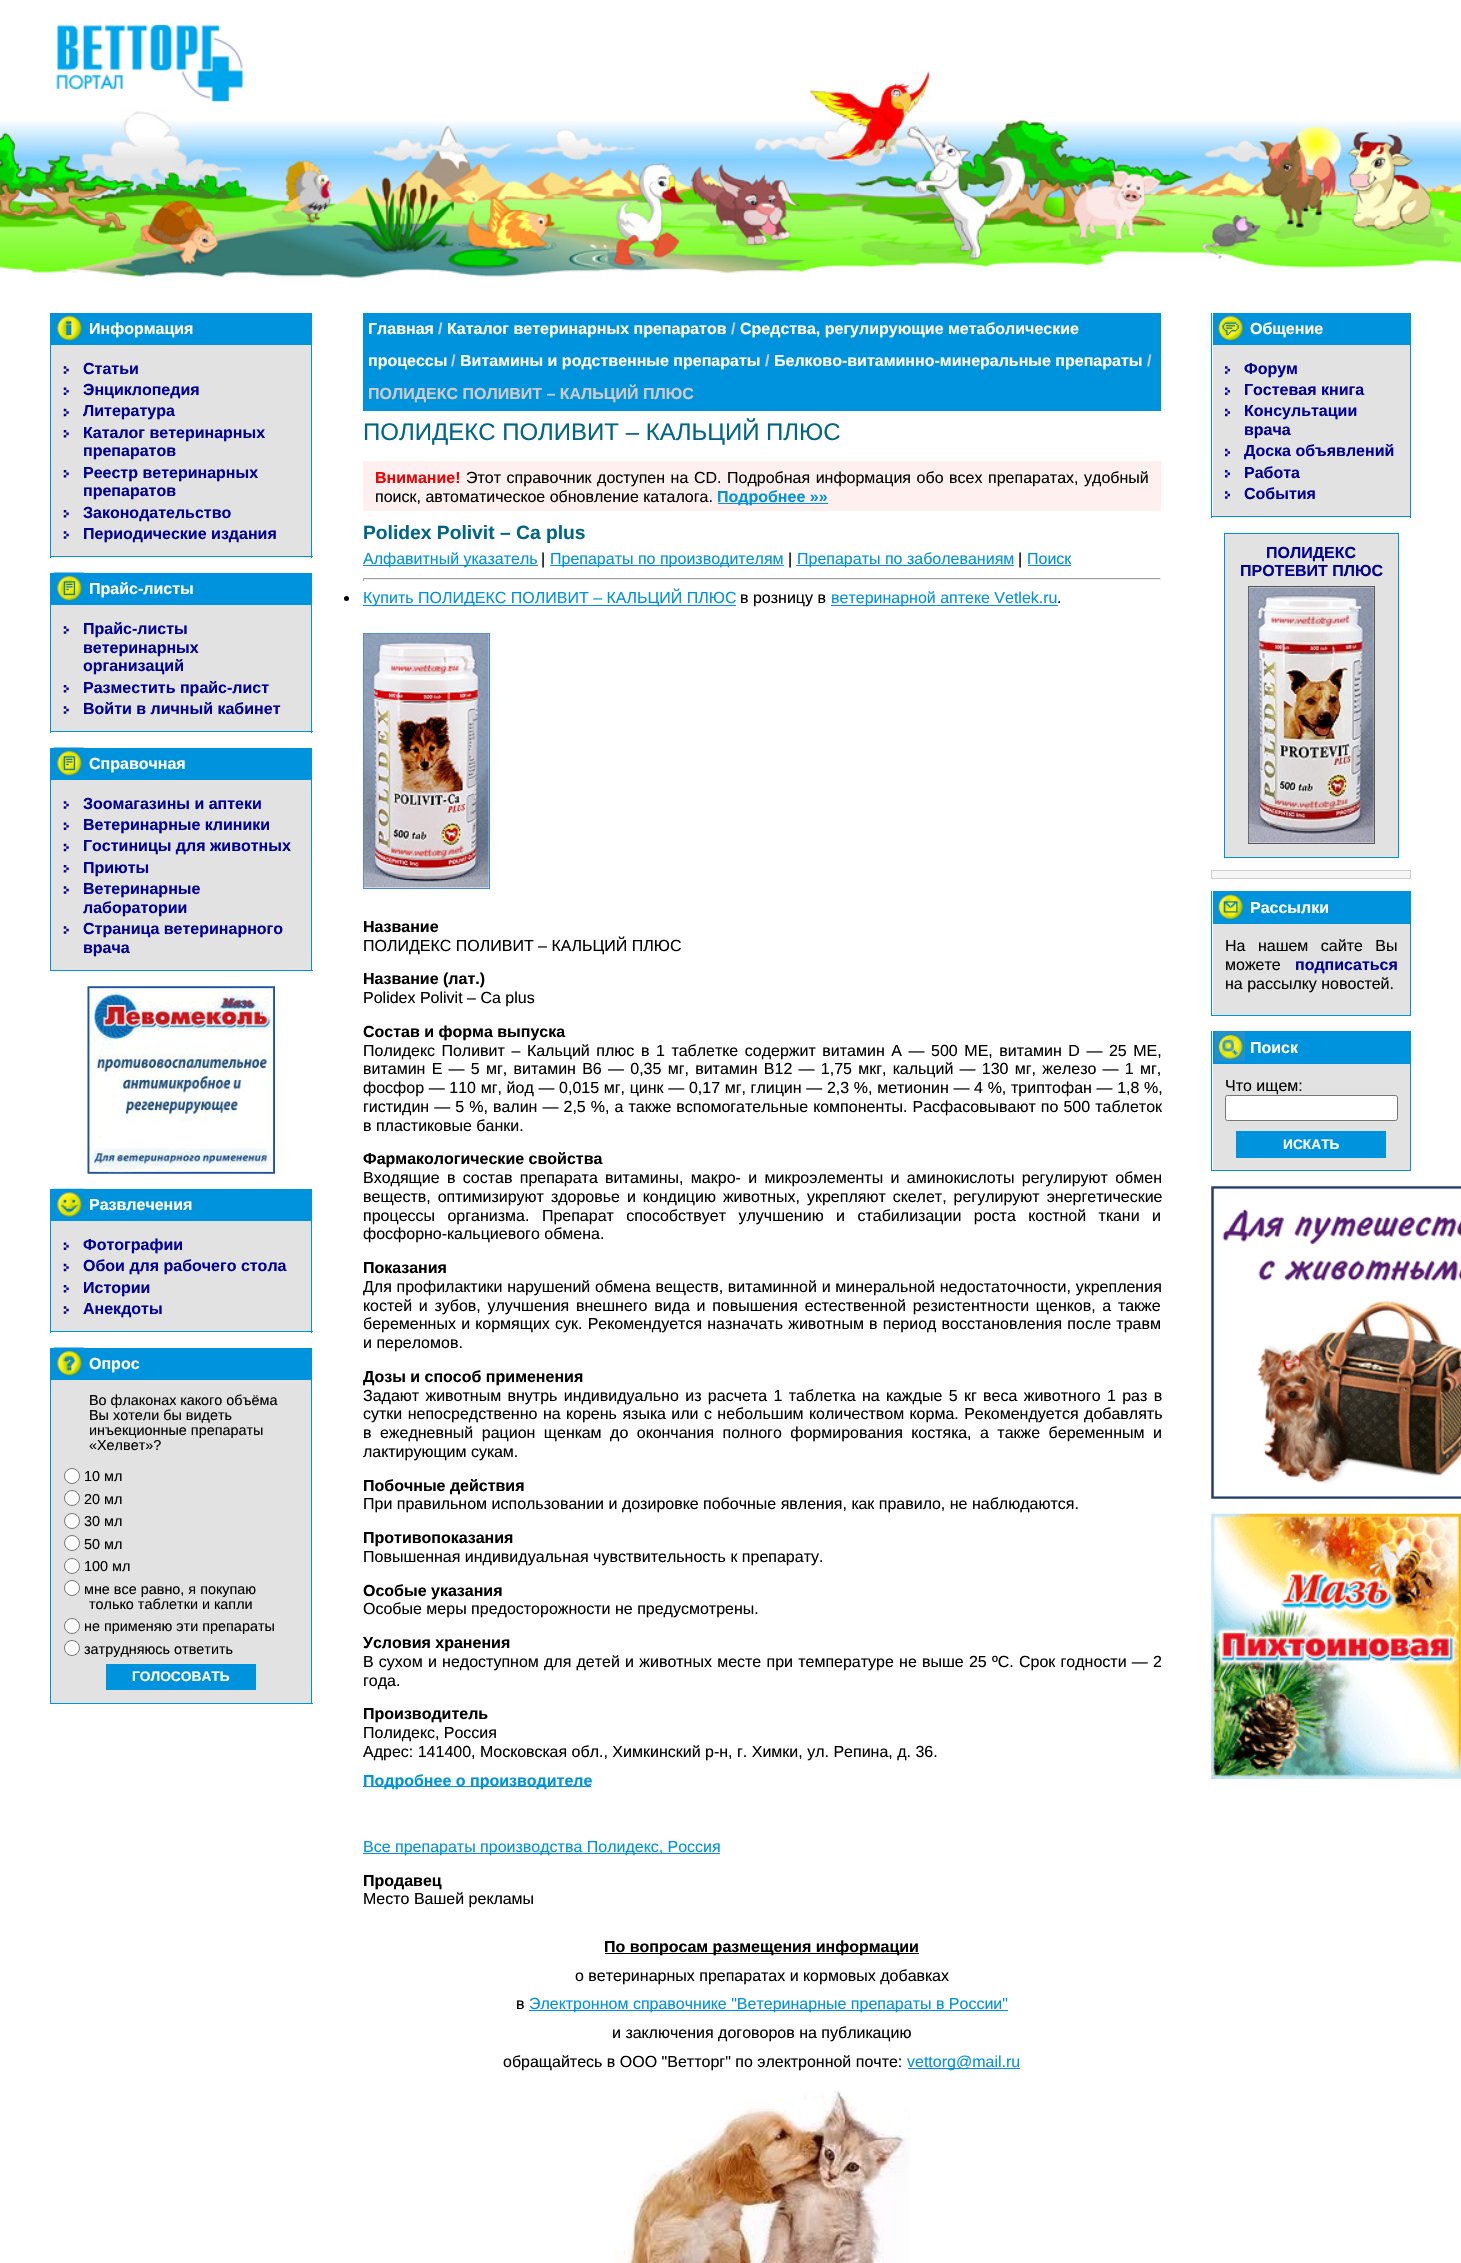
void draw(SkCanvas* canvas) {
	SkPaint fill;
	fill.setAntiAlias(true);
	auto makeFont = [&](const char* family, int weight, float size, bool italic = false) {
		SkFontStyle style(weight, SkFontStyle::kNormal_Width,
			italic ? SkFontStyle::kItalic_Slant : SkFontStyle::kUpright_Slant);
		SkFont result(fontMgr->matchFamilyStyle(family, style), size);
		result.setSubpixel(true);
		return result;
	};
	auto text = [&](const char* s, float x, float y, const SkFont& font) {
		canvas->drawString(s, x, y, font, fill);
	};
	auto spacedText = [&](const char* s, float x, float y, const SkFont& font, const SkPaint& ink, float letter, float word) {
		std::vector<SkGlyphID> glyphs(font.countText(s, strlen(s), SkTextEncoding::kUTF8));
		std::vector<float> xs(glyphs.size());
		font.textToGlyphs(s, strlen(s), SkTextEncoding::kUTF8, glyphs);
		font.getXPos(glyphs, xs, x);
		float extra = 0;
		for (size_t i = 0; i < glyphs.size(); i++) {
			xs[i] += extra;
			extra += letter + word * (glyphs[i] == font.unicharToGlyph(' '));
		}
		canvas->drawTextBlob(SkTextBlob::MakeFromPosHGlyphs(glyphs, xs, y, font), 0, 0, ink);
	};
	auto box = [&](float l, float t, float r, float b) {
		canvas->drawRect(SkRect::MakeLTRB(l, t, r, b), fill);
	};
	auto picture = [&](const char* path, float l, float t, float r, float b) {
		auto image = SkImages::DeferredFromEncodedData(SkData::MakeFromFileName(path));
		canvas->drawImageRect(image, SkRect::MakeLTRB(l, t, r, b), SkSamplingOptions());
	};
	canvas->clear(0xFFFFFFFF);
	picture("image0.png", 0, 70, 1461, 280);
	picture("image1.png", 56, 25, 243, 102);
	fill.setColor(0xFF0093DD);
	box(311, 313, 312, 558);
	box(50, 556, 313, 557);
	box(50, 313, 51, 558);
	box(51, 313, 311, 345);
	picture("image2.png", 53, 313, 84, 342);
	fill.setColor(0xFFE2E2E2);
	box(51, 345, 311, 556);
	picture("image3.png", 63, 366, 69, 374);
	picture("image4.png", 63, 387, 69, 395);
	picture("image5.png", 63, 408, 69, 417);
	picture("image6.png", 63, 430, 69, 438);
	picture("image6.png", 63, 470, 69, 478);
	picture("image6.png", 63, 510, 69, 518);
	picture("image3.png", 63, 531, 69, 539);
	fill.setColor(0xFF0093DD);
	box(311, 573, 312, 733);
	box(50, 731, 313, 732);
	box(50, 573, 51, 733);
	box(51, 573, 311, 605);
	picture("image7.png", 53, 572, 84, 602);
	fill.setColor(0xFFE2E2E2);
	box(51, 605, 311, 731);
	picture("image3.png", 63, 626, 69, 634);
	picture("image6.png", 63, 685, 69, 693);
	picture("image3.png", 63, 706, 69, 714);
	fill.setColor(0xFF0093DD);
	box(311, 748, 312, 971);
	box(50, 970, 313, 971);
	box(50, 748, 51, 971);
	box(51, 748, 311, 780);
	picture("image8.png", 53, 747, 84, 777);
	fill.setColor(0xFFE2E2E2);
	box(51, 780, 311, 970);
	picture("image3.png", 63, 801, 69, 809);
	picture("image4.png", 63, 822, 69, 830);
	picture("image5.png", 63, 843, 69, 852);
	picture("image6.png", 63, 865, 69, 873);
	picture("image3.png", 63, 886, 69, 894);
	picture("image3.png", 63, 926, 69, 934);
	picture("image9.png", 87, 986, 275, 1174);
	fill.setColor(0xFF0093DD);
	box(311, 1189, 312, 1333);
	box(50, 1331, 313, 1332);
	box(50, 1189, 51, 1333);
	box(51, 1189, 311, 1221);
	picture("image10.png", 53, 1188, 84, 1218);
	fill.setColor(0xFFE2E2E2);
	box(51, 1221, 311, 1331);
	picture("image4.png", 63, 1242, 69, 1250);
	picture("image5.png", 63, 1263, 69, 1272);
	picture("image6.png", 63, 1285, 69, 1293);
	picture("image3.png", 63, 1306, 69, 1314);
	fill.setColor(0xFF0093DD);
	box(311, 1348, 312, 1704);
	box(50, 1703, 313, 1704);
	box(50, 1348, 51, 1704);
	box(51, 1348, 311, 1380);
	picture("image11.png", 53, 1347, 84, 1377);
	fill.setColor(0xFFE2E2E2);
	box(51, 1380, 311, 1703);
	fill.setColor(0xFFFFFFFF);
	canvas->drawCircle(72, 1476, 7.5f, fill);
	fill.setStyle(SkPaint::kStroke_Style);
	fill.setStrokeWidth(1);
	fill.setColor(0xFF767676);
	canvas->drawCircle(72, 1476, 7.5f, fill);
	fill.setStyle(SkPaint::kFill_Style);
	fill.setColor(0xFFFFFFFF);
	canvas->drawCircle(72, 1498, 7.5f, fill);
	fill.setStyle(SkPaint::kStroke_Style);
	fill.setColor(0xFF767676);
	canvas->drawCircle(72, 1498, 7.5f, fill);
	fill.setStyle(SkPaint::kFill_Style);
	fill.setColor(0xFFFFFFFF);
	canvas->drawCircle(72, 1521, 7.5f, fill);
	fill.setStyle(SkPaint::kStroke_Style);
	fill.setColor(0xFF767676);
	canvas->drawCircle(72, 1521, 7.5f, fill);
	fill.setStyle(SkPaint::kFill_Style);
	fill.setColor(0xFFFFFFFF);
	canvas->drawCircle(72, 1543, 7.5f, fill);
	fill.setStyle(SkPaint::kStroke_Style);
	fill.setColor(0xFF767676);
	canvas->drawCircle(72, 1543, 7.5f, fill);
	fill.setStyle(SkPaint::kFill_Style);
	fill.setColor(0xFFFFFFFF);
	canvas->drawCircle(72, 1566, 7.5f, fill);
	fill.setStyle(SkPaint::kStroke_Style);
	fill.setColor(0xFF767676);
	canvas->drawCircle(72, 1566, 7.5f, fill);
	fill.setStyle(SkPaint::kFill_Style);
	fill.setColor(0xFFFFFFFF);
	canvas->drawCircle(72, 1588, 7.5f, fill);
	fill.setStyle(SkPaint::kStroke_Style);
	fill.setColor(0xFF767676);
	canvas->drawCircle(72, 1588, 7.5f, fill);
	fill.setStyle(SkPaint::kFill_Style);
	fill.setColor(0xFFFFFFFF);
	canvas->drawCircle(72, 1626, 7.5f, fill);
	fill.setStyle(SkPaint::kStroke_Style);
	fill.setColor(0xFF767676);
	canvas->drawCircle(72, 1626, 7.5f, fill);
	fill.setStyle(SkPaint::kFill_Style);
	fill.setColor(0xFFFFFFFF);
	canvas->drawCircle(72, 1648, 7.5f, fill);
	fill.setStyle(SkPaint::kStroke_Style);
	fill.setColor(0xFF767676);
	canvas->drawCircle(72, 1648, 7.5f, fill);
	fill.setStyle(SkPaint::kFill_Style);
	fill.setColor(0xFF0093DD);
	box(106, 1664, 256, 1690);
	box(363, 313, 1161, 411);
	fill.setColor(0xFFFFF0F0);
	box(363, 461, 1161, 511);
	fill.setColor(0xFF0093DD);
	box(718, 503, 828, 504);
	box(363, 565, 538, 566);
	box(550, 565, 784, 566);
	box(796, 565, 1014, 566);
	box(1028, 565, 1071, 566);
	fill.setColor(0xFF9F9F9F);
	box(363, 578, 1161, 579);
	fill.setColor(0xFFEEEEEE);
	box(1160, 578, 1161, 581);
	box(363, 579, 1161, 580);
	fill.setColor(0xFF9F9F9F);
	box(363, 578, 364, 581);
	fill.setColor(0xFF000000);
	canvas->drawCircle(346.5f, 598.5f, 2.5f, fill);
	fill.setColor(0xFF0093DD);
	box(363, 605, 736, 606);
	box(831, 605, 1058, 606);
	fill.setStyle(SkPaint::kStroke_Style);
	fill.setColor(0xFF3E8CDB);
	canvas->drawRect(SkRect::MakeLTRB(363.5f, 633.5f, 489.5f, 888.5f), fill);
	picture("image12.png", 363, 633, 489, 888);
	fill.setStyle(SkPaint::kFill_Style);
	fill.setColor(0xFF0093DD);
	box(363, 1786, 591, 1787);
	box(363, 1853, 720, 1854);
	fill.setColor(0xFF000000);
	box(605, 1953, 919, 1954);
	fill.setColor(0xFF0093DD);
	box(529, 2010, 1008, 2011);
	box(908, 2068, 1020, 2069);
	picture("image13.png", 614, 2090, 910, 2263);
	box(1410, 313, 1411, 518);
	box(1211, 516, 1411, 517);
	box(1211, 313, 1212, 518);
	box(1213, 313, 1410, 345);
	picture("image14.png", 1215, 313, 1245, 342);
	fill.setColor(0xFFE2E2E2);
	box(1213, 345, 1410, 516);
	picture("image15.png", 1225, 366, 1230, 374);
	picture("image16.png", 1225, 387, 1230, 395);
	picture("image17.png", 1225, 408, 1230, 417);
	picture("image17.png", 1225, 448, 1230, 457);
	picture("image18.png", 1225, 470, 1230, 478);
	picture("image15.png", 1225, 491, 1230, 499);
	canvas->drawRect(SkRect::MakeLTRB(1224.5f, 533.5f, 1398.5f, 857.5f), fill);
	fill.setStyle(SkPaint::kStroke_Style);
	fill.setColor(0xFF0093DD);
	canvas->drawRect(SkRect::MakeLTRB(1224.5f, 533.5f, 1398.5f, 857.5f), fill);
	fill.setColor(0xFF555555);
	canvas->drawRect(SkRect::MakeLTRB(1248.5f, 586.5f, 1374.5f, 843.5f), fill);
	picture("image19.png", 1248, 587, 1374, 843);
	fill.setStyle(SkPaint::kFill_Style);
	fill.setColor(0xFFF6F6F6);
	canvas->drawRect(SkRect::MakeLTRB(1211.5f, 870.5f, 1410.5f, 878.5f), fill);
	fill.setStyle(SkPaint::kStroke_Style);
	fill.setColor(0xFFCCCCCC);
	canvas->drawRect(SkRect::MakeLTRB(1211.5f, 870.5f, 1410.5f, 878.5f), fill);
	fill.setStyle(SkPaint::kFill_Style);
	fill.setColor(0xFF0093DD);
	box(1410, 891, 1411, 1016);
	box(1211, 1015, 1411, 1016);
	box(1211, 891, 1212, 1016);
	box(1213, 891, 1410, 924);
	picture("image20.png", 1217, 893, 1245, 921);
	fill.setColor(0xFFE2E2E2);
	box(1213, 924, 1410, 1015);
	fill.setColor(0xFF0093DD);
	box(1410, 1031, 1411, 1171);
	box(1211, 1170, 1411, 1171);
	box(1211, 1031, 1212, 1171);
	box(1213, 1031, 1410, 1064);
	picture("image21.png", 1215, 1031, 1245, 1062);
	fill.setColor(0xFFE2E2E2);
	box(1213, 1064, 1410, 1170);
	fill.setColor(0xFFFFFFFF);
	canvas->drawRoundRect(SkRect::MakeLTRB(1225.5f, 1095.5f, 1397.5f, 1120.5f), 2, 2, fill);
	fill.setStyle(SkPaint::kStroke_Style);
	fill.setColor(0xFF767676);
	canvas->drawRoundRect(SkRect::MakeLTRB(1225.5f, 1095.5f, 1397.5f, 1120.5f), 2, 2, fill);
	fill.setStyle(SkPaint::kFill_Style);
	fill.setColor(0xFF0093DD);
	box(1236, 1131, 1386, 1158);
	picture("image22.png", 1211, 1186, 1461, 1499);
	picture("image23.png", 1211, 1513, 1461, 1779);
	auto font1 = makeFont("Liberation Sans", 700, 16);
	fill.setColor(0xFFFFFFFF);
	text("Информация", 89, 334, font1);
	fill.setColor(0xFF000099);
	text("Статьи", 83, 374, font1);
	text("Энциклопедия", 83, 395, font1);
	text("Литература", 83, 416, font1);
	text("Каталог ветеринарных", 83, 438, font1);
	text("препаратов", 83, 456, font1);
	text("Реестр ветеринарных", 83, 478, font1);
	text("препаратов", 83, 496, font1);
	text("Законодательство", 83, 518, font1);
	text("Периодические издания", 83, 539, font1);
	fill.setColor(0xFFFFFFFF);
	text("Прайс-листы", 89, 594, font1);
	fill.setColor(0xFF000099);
	text("Прайс-листы", 83, 634, font1);
	text("ветеринарных", 83, 653, font1);
	text("организаций", 83, 671, font1);
	text("Разместить прайс-лист", 83, 693, font1);
	text("Войти в личный кабинет", 83, 714, font1);
	fill.setColor(0xFFFFFFFF);
	text("Справочная", 89, 769, font1);
	fill.setColor(0xFF000099);
	text("Зоомагазины и аптеки", 83, 809, font1);
	text("Ветеринарные клиники", 83, 830, font1);
	text("Гостиницы для животных", 83, 851, font1);
	text("Приюты", 83, 873, font1);
	text("Ветеринарные", 83, 894, font1);
	text("лаборатории", 83, 913, font1);
	text("Страница ветеринарного", 83, 934, font1);
	text("врача", 83, 953, font1);
	fill.setColor(0xFFFFFFFF);
	text("Развлечения", 89, 1210, font1);
	fill.setColor(0xFF000099);
	text("Фотографии", 83, 1250, font1);
	text("Обои для рабочего стола", 83, 1271, font1);
	text("Истории", 83, 1293, font1);
	text("Анекдоты", 83, 1314, font1);
	fill.setColor(0xFFFFFFFF);
	text("Опрос", 89, 1369, font1);
	auto font2 = makeFont("Liberation Sans", 400, 14.4f);
	fill.setColor(0xFF000000);
	text("Во флаконах какого объёма", 89, 1405, font2);
	text("Вы хотели бы видеть", 89, 1420, font2);
	text("инъекционные препараты", 89, 1435, font2);
	text("«Хелвет»?", 89, 1450, font2);
	text("10 мл", 84, 1481, font2);
	text("20 мл", 84, 1504, font2);
	text("30 мл", 84, 1526, font2);
	text("50 мл", 84, 1549, font2);
	text("100 мл", 84, 1571, font2);
	text("мне все равно, я покупаю", 84, 1594, font2);
	text("только таблетки и капли", 89, 1609, font2);
	text("не применяю эти препараты", 84, 1631, font2);
	text("затрудняюсь ответить", 84, 1654, font2);
	auto font3 = makeFont("Liberation Sans", 700, 13.75f);
	fill.setColor(0xFFFFFFFF);
	text("ГОЛОСОВАТЬ", 132, 1681, font3);
	text("Главная", 368, 334, font1);
	fill.setColor(0xFFCCCCCC);
	text("/", 438, 334, font1);
	fill.setColor(0xFFFFFFFF);
	text("Каталог ветеринарных препаратов", 447, 334, font1);
	fill.setColor(0xFFCCCCCC);
	text("/", 731, 334, font1);
	fill.setColor(0xFFFFFFFF);
	text("Средства, регулирующие метаболические", 740, 334, font1);
	text("процессы", 368, 366, font1);
	fill.setColor(0xFFCCCCCC);
	text("/", 451, 366, font1);
	fill.setColor(0xFFFFFFFF);
	text("Витамины и родственные препараты", 460, 366, font1);
	fill.setColor(0xFFCCCCCC);
	text("/", 765, 366, font1);
	fill.setColor(0xFFFFFFFF);
	text("Белково-витаминно-минеральные препараты", 774, 366, font1);
	fill.setColor(0xFFCCCCCC);
	text("/", 1147, 366, font1);
	text("ПОЛИДЕКС ПОЛИВИТ – КАЛЬЦИЙ ПЛЮС", 368, 399, font1);
	auto font4 = makeFont("Liberation Sans", 400, 24);
	fill.setColor(0xFF006688);
	text("ПОЛИДЕКС ПОЛИВИТ – КАЛЬЦИЙ ПЛЮС", 363, 440, font4);
	fill.setColor(0xFFEE0000);
	text("Внимание!", 375, 483, font1);
	auto font5 = makeFont("Liberation Sans", 400, 16);
	fill.setColor(0xFF000000);
	spacedText("Этот справочник доступен на CD. Подробная информация обо всех препаратах, удобный", 466, 483, font5, fill, 0, 1.1f);
	text("поиск, автоматическое обновление каталога.", 375, 502, font5);
	fill.setColor(0xFF0093DD);
	text("Подробнее »»", 717, 502, font1);
	auto font6 = makeFont("Liberation Sans", 700, 19.25f);
	fill.setColor(0xFF006688);
	text("Polidex Polivit – Ca plus", 363, 539, font6);
	fill.setColor(0xFF0093DD);
	text("Алфавитный указатель", 363, 564, font5);
	fill.setColor(0xFF000000);
	text("|", 541, 564, font5);
	fill.setColor(0xFF0093DD);
	text("Препараты по производителям", 550, 564, font5);
	fill.setColor(0xFF000000);
	text("|", 788, 564, font5);
	fill.setColor(0xFF0093DD);
	text("Препараты по заболеваниям", 797, 564, font5);
	fill.setColor(0xFF000000);
	text("|", 1018, 564, font5);
	fill.setColor(0xFF0093DD);
	text("Поиск", 1027, 564, font5);
	text("Купить ПОЛИДЕКС ПОЛИВИТ – КАЛЬЦИЙ ПЛЮС", 363, 603, font5);
	fill.setColor(0xFF000000);
	text("в розницу в", 740, 603, font5);
	fill.setColor(0xFF0093DD);
	text("ветеринарной аптеке Vetlek.ru", 831, 603, font5);
	fill.setColor(0xFF000000);
	text(".", 1057, 603, font5);
	text("Название", 363, 932, font1);
	text("ПОЛИДЕКС ПОЛИВИТ – КАЛЬЦИЙ ПЛЮС", 363, 951, font5);
	text("Название (лат.)", 363, 984, font1);
	text("Polidex Polivit – Ca plus", 363, 1003, font5);
	text("Состав и форма выпуска", 363, 1037, font1);
	spacedText("Полидекс Поливит – Кальций плюс в 1 таблетке содержит витамин A — 500 МЕ, витамин D — 25 МЕ,", 363, 1056, font5, fill, 0, 2.1f);
	spacedText("витамин E — 5 мг, витамин B6 — 0,35 мг, витамин B12 — 1,75 мкг, кальций — 130 мг, железо — 1 мг,", 363, 1074, font5, fill, 0, 1.8f);
	spacedText("фосфор — 110 мг, йод — 0,015 мг, цинк — 0,17 мг, глицин — 2,3 %, метионин — 4 %, триптофан — 1,8 %,", 363, 1093, font5, fill, 0, 0.2f);
	spacedText("гистидин — 5 %, валин — 2,5 %, а также вспомогательные компоненты. Расфасовывают по 500 таблеток", 363, 1112, font5, fill, 0, 0.6f);
	text("в пластиковые банки.", 363, 1131, font5);
	text("Фармакологические свойства", 363, 1164, font1);
	spacedText("Входящие в состав препарата витамины, макро- и микроэлементы и аминокислоты регулируют обмен", 363, 1183, font5, fill, 0, 2.9f);
	spacedText("веществ, оптимизируют здоровье и кондицию животных, укрепляют скелет, регулируют энергетические", 363, 1202, font5, fill, 0, 2.5f);
	spacedText("процессы организма. Препарат способствует улучшению и стабилизации роста костной ткани и", 363, 1221, font5, fill, 0, 8);
	text("фосфорно-кальциевого обмена.", 363, 1239, font5);
	text("Показания", 363, 1273, font1);
	spacedText("Для профилактики нарушений обмена веществ, витаминной и минеральной недостаточности, укрепления", 363, 1292, font5, fill, 0, 0.25f);
	spacedText("костей и зубов, улучшения внешнего вида и повышения естественной резистентности щенков, а также", 363, 1311, font5, fill, 0, 2.25f);
	spacedText("беременных и кормящих сук. Рекомендуется назначать животным в период восстановления после травм", 363, 1329, font5, fill, 0, 0.75f);
	text("и переломов.", 363, 1348, font5);
	text("Дозы и способ применения", 363, 1382, font1);
	spacedText("Задают животным внутрь индивидуально из расчета 1 таблетка на каждые 5 кг веса животного 1 раз в", 363, 1401, font5, fill, 0, 1.9f);
	spacedText("сутки непосредственно на корень языка или с небольшим количеством корма. Рекомендуется добавлять", 363, 1419, font5, fill, 0, 1);
	spacedText("в ежедневный рацион щенкам до окончания полного формирования костяка, а также беременным и", 363, 1438, font5, fill, 0, 4);
	text("лактирующим сукам.", 363, 1457, font5);
	text("Побочные действия", 363, 1491, font1);
	text("При правильном использовании и дозировке побочные явления, как правило, не наблюдаются.", 363, 1509, font5);
	text("Противопоказания", 363, 1543, font1);
	text("Повышенная индивидуальная чувствительность к препарату.", 363, 1562, font5);
	text("Особые указания", 363, 1596, font1);
	text("Особые меры предосторожности не предусмотрены.", 363, 1614, font5);
	text("Условия хранения", 363, 1648, font1);
	spacedText("В сухом и недоступном для детей и животных месте при температуре не выше 25 ºС. Срок годности — 2", 363, 1667, font5, fill, 0, 0.75f);
	text("года.", 363, 1686, font5);
	text("Производитель", 363, 1719, font1);
	text("Полидекс, Россия", 363, 1738, font5);
	text("Адрес: 141400, Московская обл., Химкинский р-н, г. Химки, ул. Репина, д. 36.", 363, 1757, font5);
	fill.setColor(0xFF0093DD);
	text("Подробнее о производителе", 363, 1786, font1);
	text("Все препараты производства Полидекс, Россия", 363, 1852, font5);
	fill.setColor(0xFF000000);
	text("Продавец", 363, 1886, font1);
	text("Место Вашей рекламы", 363, 1904, font5);
	text("По вопросам размещения информации", 604, 1952, font1);
	text("о ветеринарных препаратах и кормовых добавках", 575, 1981, font5);
	text("в", 516, 2009, font5);
	fill.setColor(0xFF0093DD);
	text("Электронном справочнике \"Ветеринарные препараты в России\"", 529, 2009, font5);
	fill.setColor(0xFF000000);
	text("и заключения договоров на публикацию", 612, 2038, font5);
	text("обращайтесь в ООО \"Ветторг\" по электронной почте:", 503, 2067, font5);
	fill.setColor(0xFF0093DD);
	text("vettorg@mail.ru", 907, 2067, font5);
	fill.setColor(0xFFFFFFFF);
	text("Общение", 1250, 334, font1);
	fill.setColor(0xFF000099);
	text("Форум", 1244, 374, font1);
	text("Гостевая книга", 1244, 395, font1);
	text("Консультации", 1244, 416, font1);
	text("врача", 1244, 435, font1);
	text("Доска объявлений", 1244, 456, font1);
	text("Работа", 1244, 478, font1);
	text("События", 1244, 499, font1);
	text("ПОЛИДЕКС", 1266, 558, font1);
	text("ПРОТЕВИТ ПЛЮС", 1240, 576, font1);
	fill.setColor(0xFFFFFFFF);
	text("Рассылки", 1250, 913, font1);
	fill.setColor(0xFF000000);
	spacedText("На нашем сайте Вы", 1225, 951, font5, fill, 0, 8);
	text("можете", 1225, 970, font5);
	fill.setColor(0xFF000099);
	text("подписаться", 1295, 970, font1);
	fill.setColor(0xFF000000);
	text("на рассылку новостей.", 1225, 989, font5);
	fill.setColor(0xFFFFFFFF);
	text("Поиск", 1250, 1053, font1);
	fill.setColor(0xFF000000);
	text("Что ищем:", 1225, 1091, font5);
	fill.setColor(0xFFFFFFFF);
	text("ИСКАТЬ", 1283, 1149, font3);
}
